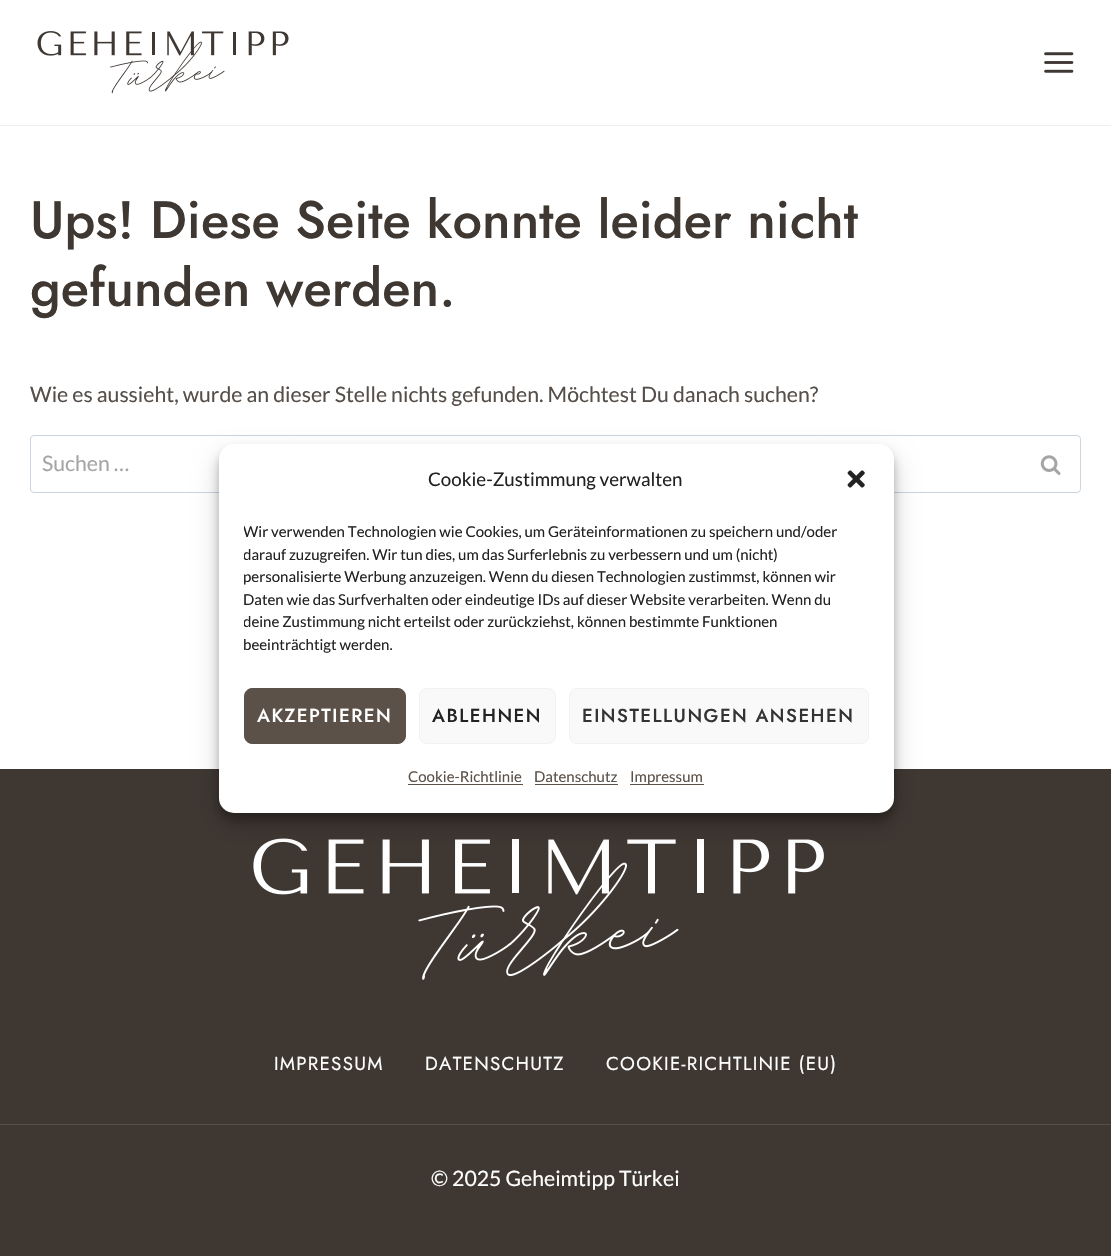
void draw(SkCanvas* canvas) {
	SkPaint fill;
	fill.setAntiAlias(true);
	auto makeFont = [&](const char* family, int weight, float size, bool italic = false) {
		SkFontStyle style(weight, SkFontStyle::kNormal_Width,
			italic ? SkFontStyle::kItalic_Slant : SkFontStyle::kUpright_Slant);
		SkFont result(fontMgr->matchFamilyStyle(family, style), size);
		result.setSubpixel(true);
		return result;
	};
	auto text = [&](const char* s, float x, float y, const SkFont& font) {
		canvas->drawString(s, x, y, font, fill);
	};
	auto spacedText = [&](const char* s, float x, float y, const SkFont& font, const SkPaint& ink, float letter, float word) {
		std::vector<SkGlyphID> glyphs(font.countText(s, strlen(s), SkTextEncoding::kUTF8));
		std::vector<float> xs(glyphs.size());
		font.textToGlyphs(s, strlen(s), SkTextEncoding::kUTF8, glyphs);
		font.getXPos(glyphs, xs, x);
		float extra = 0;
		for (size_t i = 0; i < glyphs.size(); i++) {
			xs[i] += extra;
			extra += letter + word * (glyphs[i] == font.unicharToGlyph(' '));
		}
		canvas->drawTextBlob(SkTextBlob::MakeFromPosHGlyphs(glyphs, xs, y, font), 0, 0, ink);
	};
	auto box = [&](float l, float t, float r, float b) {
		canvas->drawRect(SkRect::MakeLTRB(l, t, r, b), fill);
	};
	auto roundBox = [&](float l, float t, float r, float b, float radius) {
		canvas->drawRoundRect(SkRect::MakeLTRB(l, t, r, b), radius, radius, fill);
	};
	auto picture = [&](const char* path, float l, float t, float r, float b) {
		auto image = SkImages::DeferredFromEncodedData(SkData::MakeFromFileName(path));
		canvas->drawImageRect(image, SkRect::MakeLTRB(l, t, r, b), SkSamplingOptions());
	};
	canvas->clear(0xFFFFFFFF);
	fill.setColor(0xFFEEEEEE);
	box(0, 125, 1111, 126);
	picture("image0.png", 37, 31, 289, 94);
	picture("image1.png", 1044, 52, 1074, 73);
	fill.setStyle(SkPaint::kStroke_Style);
	fill.setStrokeWidth(1);
	fill.setColor(0xFFCBD5E0);
	canvas->drawRoundRect(SkRect::MakeLTRB(30.5f, 435.5f, 1080.5f, 492.5f), 3.5f, 3.5f, fill);
	picture("image2.png", 1040, 455, 1061, 475);
	fill.setStyle(SkPaint::kFill_Style);
	fill.setColor(0xFF3E3732);
	box(0, 769, 1111, 1256);
	picture("image3.png", 253, 838, 824, 980);
	fill.setColor(0xFF554E49);
	box(0, 1124, 1111, 1125);
	fill.setColor(0x3B000000);
	fill.setMaskFilter(SkMaskFilter::MakeBlur(kNormal_SkBlurStyle, 4));
	canvas->drawRoundRect(SkRect::MakeLTRB(219, 451, 894, 820), 15, 15, fill);
	fill.setMaskFilter(nullptr);
	fill.setColor(0x30000000);
	fill.setMaskFilter(SkMaskFilter::MakeBlur(kNormal_SkBlurStyle, 12.5f));
	canvas->drawRoundRect(SkRect::MakeLTRB(219, 456, 894, 825), 15, 15, fill);
	fill.setMaskFilter(nullptr);
	fill.setColor(0xFFFFFFFF);
	roundBox(219, 444, 894, 813, 15);
	picture("image4.png", 847, 470, 865, 488);
	fill.setColor(0xFF5B5149);
	canvas->drawRoundRect(SkRect::MakeLTRB(244.5f, 688.5f, 405.5f, 743.5f), 7.5f, 7.5f, fill);
	fill.setStyle(SkPaint::kStroke_Style);
	canvas->drawRoundRect(SkRect::MakeLTRB(244.5f, 688.5f, 405.5f, 743.5f), 7.5f, 7.5f, fill);
	fill.setStyle(SkPaint::kFill_Style);
	fill.setColor(0xFFF9F9F9);
	canvas->drawRoundRect(SkRect::MakeLTRB(419.5f, 688.5f, 555.5f, 743.5f), 7.5f, 7.5f, fill);
	fill.setStyle(SkPaint::kStroke_Style);
	fill.setColor(0xFFF2F2F2);
	canvas->drawRoundRect(SkRect::MakeLTRB(419.5f, 688.5f, 555.5f, 743.5f), 7.5f, 7.5f, fill);
	fill.setStyle(SkPaint::kFill_Style);
	fill.setColor(0xFFF9F9F9);
	canvas->drawRoundRect(SkRect::MakeLTRB(569.5f, 688.5f, 868.5f, 743.5f), 7.5f, 7.5f, fill);
	fill.setStyle(SkPaint::kStroke_Style);
	fill.setColor(0xFFF2F2F2);
	canvas->drawRoundRect(SkRect::MakeLTRB(569.5f, 688.5f, 868.5f, 743.5f), 7.5f, 7.5f, fill);
	fill.setStyle(SkPaint::kFill_Style);
	fill.setColor(0xFF5B5149);
	box(408, 784, 523, 785);
	box(535, 784, 618, 785);
	box(630, 784, 704, 785);
	auto font1 = makeFont("Jost", 500, 52.5f);
	fill.setColor(0xFF3E3732);
	text("Ups! Diese Seite konnte leider nicht", 30, 238, font1);
	text("gefunden werden.", 30, 306, font1);
	auto font2 = makeFont("Lato", 400, 21.25f);
	fill.setColor(0xFF554E49);
	text("Wie es aussieht, wurde an dieser Stelle nichts gefunden. Möchtest Du danach suchen?", 30, 402, font2);
	fill.setColor(0xFFA5A5A5);
	text("Suchen …", 42, 471, font2);
	auto font3 = makeFont("Jost", 400, 18.75f);
	fill.setColor(0xFFFFFFFF);
	spacedText("IMPRESSUM", 274, 1070, font3, fill, 1.25f, 0);
	spacedText("DATENSCHUTZ", 425, 1070, font3, fill, 1.25f, 0);
	spacedText("COOKIE-RICHTLINIE (EU)", 606, 1070, font3, fill, 1.25f, 0);
	text("© 2025 Geheimtipp Türkei", 431, 1186, font2);
	auto font4 = makeFont("Lato", 400, 18.75f);
	fill.setColor(0xFF222222);
	text("Cookie-Zustimmung verwalten", 428, 486, font4);
	canvas->save();
	canvas->clipRect(SkRect::MakeLTRB(244, 521, 869, 663));
	auto font5 = makeFont("Lato", 400, 15);
	text("Wir verwenden Technologien wie Cookies, um Geräteinformationen zu speichern und/oder", 243, 537, font5);
	text("darauf zuzugreifen. Wir tun dies, um das Surferlebnis zu verbessern und um (nicht)", 243, 560, font5);
	canvas->restore();
	text("personalisierte Werbung anzuzeigen. Wenn du diesen Technologien zustimmst, können wir", 243, 582, font5);
	text("Daten wie das Surfverhalten oder eindeutige IDs auf dieser Website verarbeiten. Wenn du", 243, 605, font5);
	canvas->save();
	canvas->clipRect(SkRect::MakeLTRB(244, 521, 869, 663));
	text("deine Zustimmung nicht erteilst oder zurückziehst, können bestimmte Funktionen", 243, 627, font5);
	canvas->restore();
	text("beeinträchtigt werden.", 243, 650, font5);
	auto font6 = makeFont("Jost", 500, 18.75f);
	fill.setColor(0xFFFFFFFF);
	spacedText("AKZEPTIEREN", 257, 722, font6, fill, 1.5f, 0);
	fill.setColor(0xFF222222);
	spacedText("ABLEHNEN", 432, 722, font6, fill, 1.5f, 0);
	fill.setColor(0xFF333333);
	spacedText("EINSTELLUNGEN ANSEHEN", 582, 722, font6, fill, 1.5f, 0);
	fill.setColor(0xFF5B5149);
	text("Cookie-Richtlinie", 408, 782, font5);
	text("Datenschutz", 534, 782, font5);
	text("Impressum", 630, 782, font5);
}
